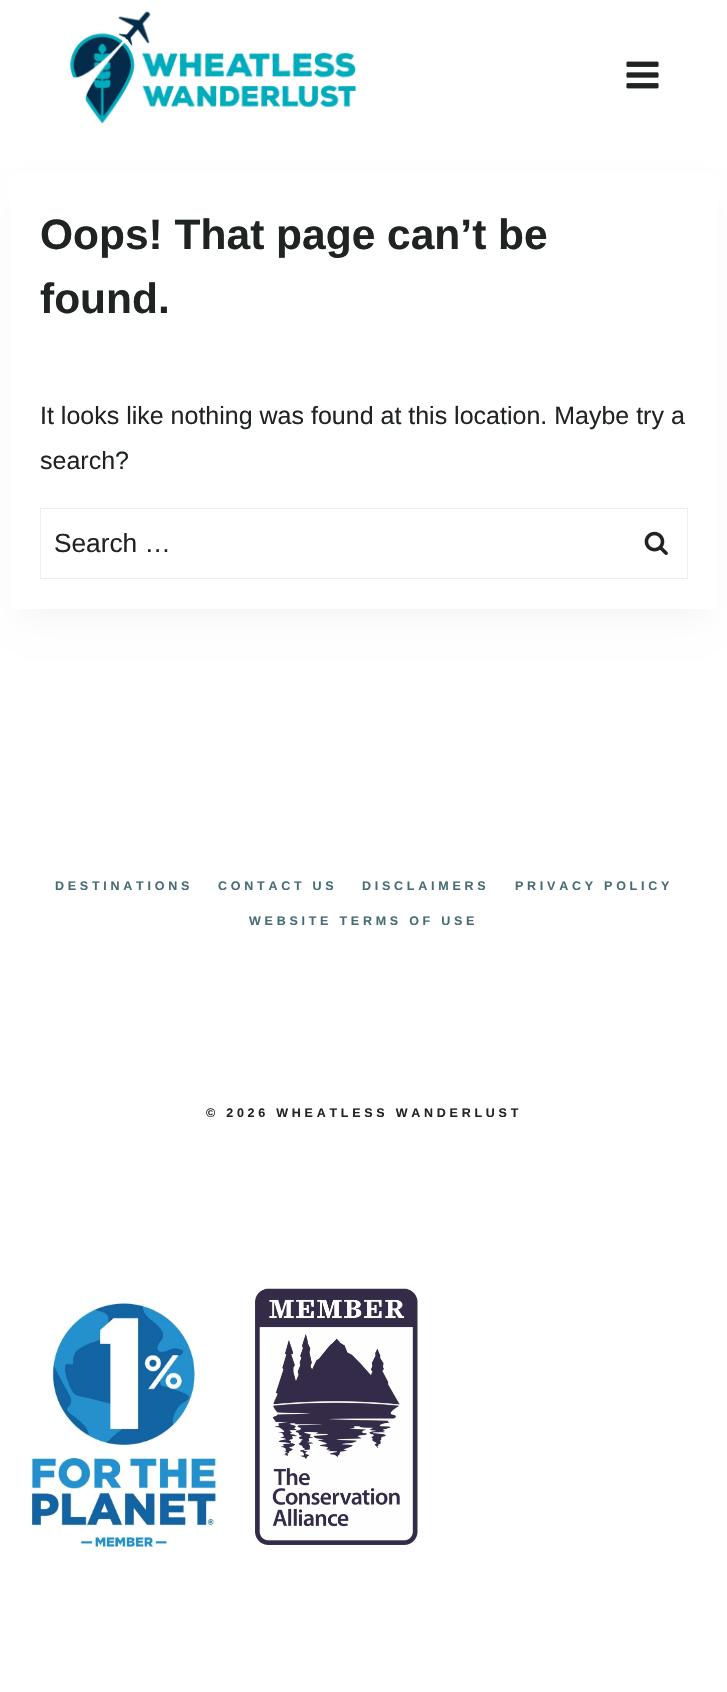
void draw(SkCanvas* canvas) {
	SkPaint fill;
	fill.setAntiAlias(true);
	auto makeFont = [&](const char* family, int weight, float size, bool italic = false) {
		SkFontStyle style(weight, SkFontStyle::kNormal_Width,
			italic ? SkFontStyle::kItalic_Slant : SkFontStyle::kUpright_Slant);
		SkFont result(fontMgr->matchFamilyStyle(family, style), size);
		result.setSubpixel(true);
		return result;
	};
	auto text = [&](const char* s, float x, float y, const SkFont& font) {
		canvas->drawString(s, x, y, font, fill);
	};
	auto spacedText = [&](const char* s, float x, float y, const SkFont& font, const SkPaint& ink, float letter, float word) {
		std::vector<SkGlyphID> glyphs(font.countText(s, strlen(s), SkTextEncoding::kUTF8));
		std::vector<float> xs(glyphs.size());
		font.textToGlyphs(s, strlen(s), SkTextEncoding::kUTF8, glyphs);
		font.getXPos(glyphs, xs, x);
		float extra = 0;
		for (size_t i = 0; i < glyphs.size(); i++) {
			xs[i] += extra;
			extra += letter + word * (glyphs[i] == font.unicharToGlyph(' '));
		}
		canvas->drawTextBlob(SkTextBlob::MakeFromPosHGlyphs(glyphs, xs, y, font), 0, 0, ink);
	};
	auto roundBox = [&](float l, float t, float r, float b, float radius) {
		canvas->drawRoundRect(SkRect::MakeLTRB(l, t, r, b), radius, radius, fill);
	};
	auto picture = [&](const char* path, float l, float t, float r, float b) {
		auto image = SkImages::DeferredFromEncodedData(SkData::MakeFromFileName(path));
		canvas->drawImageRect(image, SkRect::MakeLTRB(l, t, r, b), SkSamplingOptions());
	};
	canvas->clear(0xFFFFFFFF);
	picture("image0.png", 70, 11, 357, 124);
	picture("image1.png", 626, 61, 659, 89);
	fill.setColor(0x0D000000);
	fill.setMaskFilter(SkMaskFilter::MakeBlur(kNormal_SkBlurStyle, 15.5f));
	canvas->drawRect(SkRect::MakeLTRB(23, 204, 705, 615), fill);
	fill.setMaskFilter(nullptr);
	fill.setColor(0xFFFFFFFF);
	roundBox(10, 173, 718, 609, 5);
	fill.setStyle(SkPaint::kStroke_Style);
	fill.setStrokeWidth(1);
	fill.setColor(0xFFEEEEEE);
	canvas->drawRect(SkRect::MakeLTRB(40.5f, 508.5f, 687.5f, 578.5f), fill);
	picture("image2.png", 644, 531, 668, 555);
	picture("image3.png", 30, 1301, 218, 1549);
	picture("image4.png", 255, 1288, 418, 1545);
	auto font1 = makeFont("Liberation Sans", 700, 42.5f);
	fill.setStyle(SkPaint::kFill_Style);
	fill.setColor(0xFF1F2423);
	text("Oops! That page can’t be", 40, 249, font1);
	text("found.", 40, 313, font1);
	auto font2 = makeFont("Liberation Sans", 400, 25);
	text("It looks like nothing was found at this location. Maybe try a", 40, 424, font2);
	text("search?", 40, 469, font2);
	auto font3 = makeFont("Liberation Sans", 400, 26.25f);
	text("Search …", 54, 552, font3);
	auto font4 = makeFont("Liberation Sans", 700, 12.5f);
	fill.setColor(0xFF486C75);
	spacedText("DESTINATIONS", 55, 890, font4, fill, 3.75f, 0);
	spacedText("CONTACT US", 218, 890, font4, fill, 3.75f, 0);
	spacedText("DISCLAIMERS", 362, 890, font4, fill, 3.75f, 0);
	spacedText("PRIVACY POLICY", 515, 890, font4, fill, 3.75f, 0);
	spacedText("WEBSITE TERMS OF USE", 249, 925, font4, fill, 3.75f, 0);
	fill.setColor(0xFF1F2423);
	spacedText("© 2026 WHEATLESS WANDERLUST", 206, 1117, font4, fill, 3.75f, 0);
}
